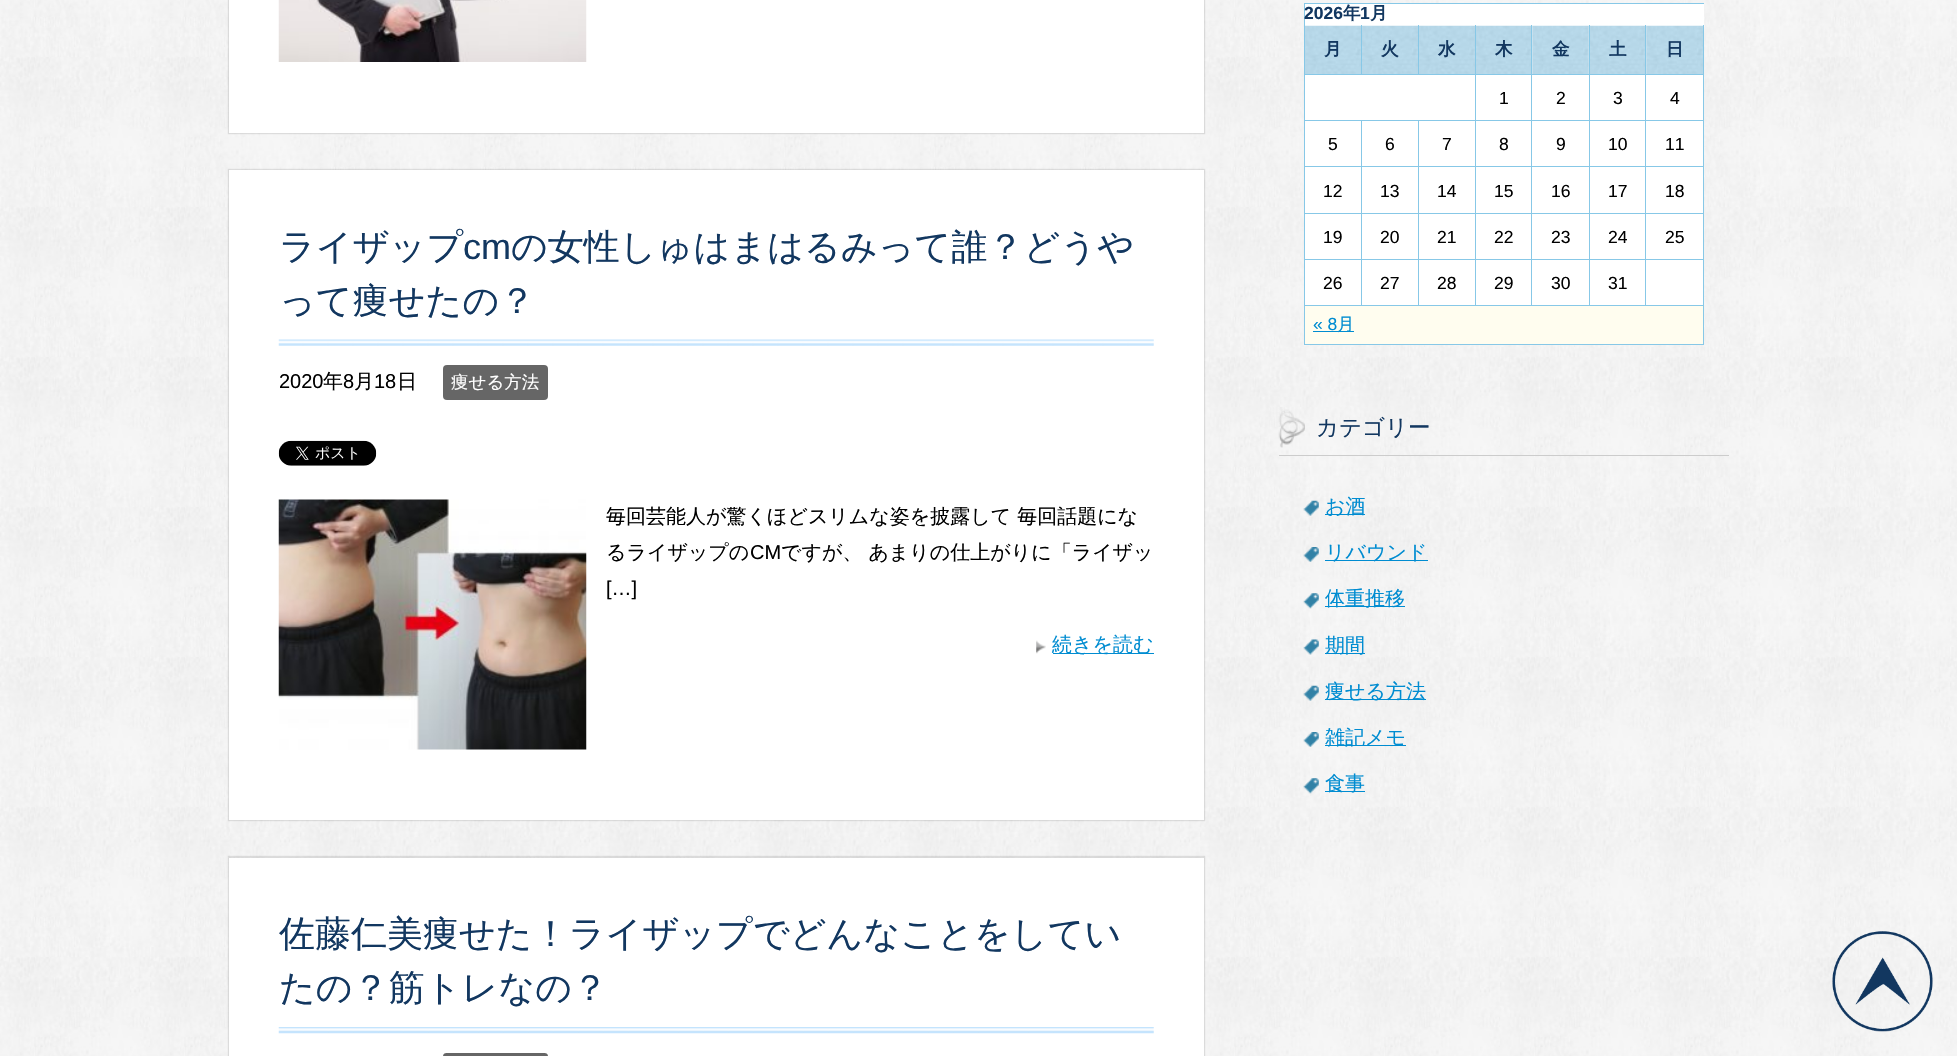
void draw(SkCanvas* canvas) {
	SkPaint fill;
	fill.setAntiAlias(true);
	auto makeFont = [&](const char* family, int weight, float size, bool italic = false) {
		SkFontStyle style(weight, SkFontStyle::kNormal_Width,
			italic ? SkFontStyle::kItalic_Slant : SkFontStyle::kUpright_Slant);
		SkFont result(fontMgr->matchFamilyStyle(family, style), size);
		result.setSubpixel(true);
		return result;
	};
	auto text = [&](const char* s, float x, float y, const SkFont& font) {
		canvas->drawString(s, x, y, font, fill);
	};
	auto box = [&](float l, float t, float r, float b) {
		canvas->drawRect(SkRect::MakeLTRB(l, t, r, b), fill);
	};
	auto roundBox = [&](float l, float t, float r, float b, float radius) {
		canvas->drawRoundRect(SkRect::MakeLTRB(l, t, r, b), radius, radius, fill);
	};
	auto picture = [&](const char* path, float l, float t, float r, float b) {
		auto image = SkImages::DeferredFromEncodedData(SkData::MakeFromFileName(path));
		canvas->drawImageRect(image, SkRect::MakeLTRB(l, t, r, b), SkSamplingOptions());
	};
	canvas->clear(0xFFFFFFFF);
	picture("image0.png", 0, 0, 1957, 1056);
	fill.setColor(0x1A000000);
	fill.setMaskFilter(SkMaskFilter::MakeBlur(kNormal_SkBlurStyle, 0.5f));
	canvas->drawRect(SkRect::MakeLTRB(228, -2, 1205, 134), fill);
	fill.setMaskFilter(nullptr);
	fill.setColor(0xFFFFFFFF);
	box(229, 0, 1204, 133);
	picture("image1.png", 278, 0, 587, 62);
	fill.setColor(0x1A000000);
	fill.setMaskFilter(SkMaskFilter::MakeBlur(kNormal_SkBlurStyle, 0.5f));
	canvas->drawRect(SkRect::MakeLTRB(228, 169, 1205, 821), fill);
	fill.setMaskFilter(nullptr);
	fill.setColor(0xFFFFFFFF);
	box(229, 170, 1204, 820);
	picture("image2.png", 278, 339, 1154, 346);
	fill.setColor(0xFF666666);
	roundBox(443, 365, 548, 400, 4);
	picture("image3.png", 278, 440, 377, 466);
	picture("image4.png", 278, 499, 587, 750);
	picture("image5.png", 1036, 640, 1046, 654);
	fill.setColor(0xFF008CD1);
	box(1053, 653, 1154, 654);
	fill.setColor(0x1A000000);
	fill.setMaskFilter(SkMaskFilter::MakeBlur(kNormal_SkBlurStyle, 0.5f));
	canvas->drawRect(SkRect::MakeLTRB(228, 856, 1205, 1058), fill);
	fill.setMaskFilter(nullptr);
	fill.setColor(0xFFFFFFFF);
	box(229, 858, 1204, 1056);
	picture("image6.png", 278, 1027, 1154, 1034);
	fill.setColor(0xFF666666);
	roundBox(443, 1053, 548, 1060, 4);
	fill.setColor(0xFFFFFFFF);
	box(1305, 4, 1704, 305);
	fill.setColor(0xFF87C8E7);
	box(1304, 3, 1704, 4);
	box(1304, 3, 1305, 345);
	picture("image7.png", 1305, 25, 1361, 74);
	picture("image10.png", 1476, 25, 1533, 74);
	picture("image11.png", 1532, 25, 1589, 74);
	picture("image12.png", 1588, 25, 1647, 74);
	box(1703, 25, 1704, 306);
	box(1645, 305, 1704, 306);
	box(1645, 259, 1646, 306);
	box(1645, 259, 1704, 260);
	box(1645, 213, 1646, 260);
	box(1645, 213, 1704, 214);
	box(1645, 166, 1646, 214);
	box(1645, 166, 1704, 167);
	box(1645, 120, 1646, 168);
	box(1645, 120, 1704, 121);
	box(1645, 74, 1646, 121);
	box(1645, 74, 1704, 75);
	box(1645, 25, 1646, 75);
	box(1589, 305, 1646, 306);
	box(1589, 259, 1590, 306);
	box(1589, 259, 1646, 260);
	box(1589, 213, 1590, 260);
	box(1589, 213, 1646, 214);
	box(1589, 166, 1590, 214);
	box(1589, 166, 1646, 167);
	box(1589, 120, 1590, 168);
	box(1589, 120, 1646, 121);
	box(1589, 74, 1590, 121);
	box(1589, 74, 1646, 75);
	box(1589, 25, 1590, 75);
	box(1531, 305, 1590, 306);
	box(1531, 259, 1532, 306);
	box(1531, 259, 1590, 260);
	box(1531, 213, 1532, 260);
	box(1531, 213, 1590, 214);
	box(1531, 166, 1532, 214);
	box(1531, 166, 1590, 167);
	box(1531, 120, 1532, 168);
	box(1531, 120, 1590, 121);
	box(1531, 74, 1532, 121);
	box(1531, 74, 1590, 75);
	box(1531, 25, 1532, 75);
	box(1475, 305, 1533, 306);
	box(1475, 259, 1476, 306);
	box(1475, 259, 1533, 260);
	box(1475, 213, 1476, 260);
	box(1475, 213, 1533, 214);
	box(1475, 166, 1476, 214);
	box(1475, 166, 1533, 167);
	box(1475, 120, 1476, 168);
	box(1475, 120, 1533, 121);
	box(1475, 74, 1476, 121);
	box(1475, 74, 1533, 75);
	box(1475, 25, 1476, 75);
	box(1418, 74, 1476, 75);
	box(1418, 25, 1419, 75);
	box(1361, 74, 1419, 75);
	box(1361, 25, 1362, 75);
	box(1304, 74, 1363, 75);
	picture("image8.png", 1362, 25, 1418, 74);
	picture("image9.png", 1419, 25, 1475, 74);
	picture("image13.png", 1646, 25, 1703, 74);
	box(1418, 305, 1476, 306);
	box(1418, 259, 1419, 306);
	box(1418, 259, 1476, 260);
	box(1418, 213, 1419, 260);
	box(1418, 213, 1476, 214);
	box(1418, 166, 1419, 214);
	box(1418, 166, 1476, 167);
	box(1418, 120, 1419, 168);
	box(1361, 305, 1419, 306);
	box(1361, 259, 1362, 306);
	box(1361, 259, 1419, 260);
	box(1361, 213, 1362, 260);
	box(1361, 213, 1419, 214);
	box(1361, 166, 1362, 214);
	box(1361, 166, 1419, 167);
	box(1361, 120, 1362, 168);
	box(1304, 120, 1476, 121);
	box(1304, 166, 1363, 167);
	box(1304, 213, 1363, 214);
	box(1304, 259, 1363, 260);
	box(1304, 305, 1363, 306);
	fill.setColor(0xFFFFFDEF);
	box(1305, 306, 1703, 344);
	fill.setColor(0xFF87C8E7);
	box(1703, 305, 1704, 345);
	box(1304, 344, 1704, 345);
	fill.setColor(0xFF008CD1);
	box(1313, 331, 1354, 332);
	picture("image14.png", 1278, 407, 1305, 448);
	fill.setColor(0xFFCCCCCC);
	box(1279, 455, 1729, 456);
	picture("image15.png", 1303, 500, 1319, 516);
	fill.setColor(0xFF008CD1);
	box(1325, 514, 1365, 515);
	picture("image16.png", 1303, 547, 1319, 562);
	box(1325, 560, 1428, 561);
	picture("image17.png", 1303, 593, 1319, 609);
	box(1325, 606, 1405, 607);
	picture("image18.png", 1303, 639, 1319, 655);
	box(1325, 653, 1365, 654);
	picture("image19.png", 1303, 685, 1319, 701);
	box(1325, 699, 1426, 700);
	picture("image20.png", 1303, 732, 1319, 747);
	box(1325, 745, 1406, 746);
	picture("image21.png", 1303, 778, 1319, 794);
	box(1325, 791, 1365, 792);
	picture("image22.png", 1832, 931, 1933, 1032);
	auto font1 = makeFont("WenQuanYi Zen Hei", 500, 36);
	fill.setColor(0xFF123760);
	text("ライザップ", 279, 259, font1);
	auto font2 = makeFont("Liberation Sans", 400, 36);
	text("cm", 463, 259, font2);
	text("の女性しゅはまはるみって誰？どうや", 511, 259, font1);
	text("って痩せたの？", 279, 313, font1);
	auto font3 = makeFont("Liberation Sans", 400, 20);
	fill.setColor(0xFF000000);
	text("2020", 279, 388, font3);
	auto font4 = makeFont("WenQuanYi Zen Hei", 500, 20);
	text("年", 323, 388, font4);
	text("8", 343, 388, font3);
	text("月", 354, 388, font4);
	text("18", 374, 388, font3);
	text("日", 397, 388, font4);
	auto font5 = makeFont("WenQuanYi Zen Hei", 500, 17.5f);
	fill.setColor(0xFFFFFFFF);
	text("痩せる方法", 451, 388, font5);
	fill.setColor(0xFF000000);
	text("毎回芸能人が驚くほどスリムな姿を披露して 毎回話題にな", 606, 523, font4);
	text("るライザップの", 606, 559, font4);
	text("CM", 750, 559, font3);
	text("ですが、 あまりの仕上がりに「ライザッ", 781, 559, font4);
	text("[…]", 606, 595, font3);
	fill.setColor(0xFF008CD1);
	text("続きを読む", 1052, 651, font4);
	fill.setColor(0xFF123760);
	text("佐藤仁美痩せた！ライザップでどんなことをしてい", 279, 946, font1);
	text("たの？筋トレなの？", 279, 1000, font1);
	auto font6 = makeFont("Liberation Sans", 700, 17.5f);
	text("2026", 1304, 19, font6);
	auto font7 = makeFont("WenQuanYi Zen Hei", 700, 17.5f);
	text("年", 1343, 19, font7);
	text("1", 1360, 19, font6);
	text("月", 1370, 19, font7);
	text("月", 1324, 55, font7);
	text("火", 1381, 55, font7);
	text("水", 1438, 55, font7);
	text("木", 1495, 55, font7);
	text("金", 1552, 55, font7);
	text("土", 1609, 55, font7);
	text("日", 1666, 55, font7);
	auto font8 = makeFont("Liberation Sans", 400, 17.5f);
	fill.setColor(0xFF000000);
	text("1", 1499, 104, font8);
	text("2", 1556, 104, font8);
	text("3", 1613, 104, font8);
	text("4", 1670, 104, font8);
	text("5", 1328, 150, font8);
	text("6", 1385, 150, font8);
	text("7", 1442, 150, font8);
	text("8", 1499, 150, font8);
	text("9", 1556, 150, font8);
	text("10", 1608, 150, font8);
	text("11", 1665, 150, font8);
	text("12", 1323, 197, font8);
	text("13", 1380, 197, font8);
	text("14", 1437, 197, font8);
	text("15", 1494, 197, font8);
	text("16", 1551, 197, font8);
	text("17", 1608, 197, font8);
	text("18", 1665, 197, font8);
	text("19", 1323, 243, font8);
	text("20", 1380, 243, font8);
	text("21", 1437, 243, font8);
	text("22", 1494, 243, font8);
	text("23", 1551, 243, font8);
	text("24", 1608, 243, font8);
	text("25", 1665, 243, font8);
	text("26", 1323, 289, font8);
	text("27", 1380, 289, font8);
	text("28", 1437, 289, font8);
	text("29", 1494, 289, font8);
	text("30", 1551, 289, font8);
	text("31", 1608, 289, font8);
	fill.setColor(0xFF008CD1);
	text("« 8", 1313, 330, font8);
	text("月", 1337, 330, font5);
	auto font9 = makeFont("WenQuanYi Zen Hei", 500, 22.5f);
	fill.setColor(0xFF123760);
	text("カテゴリー", 1316, 435, font9);
	fill.setColor(0xFF008CD1);
	text("お酒", 1325, 513, font4);
	text("リバウンド", 1325, 559, font4);
	text("体重推移", 1325, 605, font4);
	text("期間", 1325, 652, font4);
	text("痩せる方法", 1325, 698, font4);
	text("雑記メモ", 1325, 744, font4);
	text("食事", 1325, 790, font4);
}
